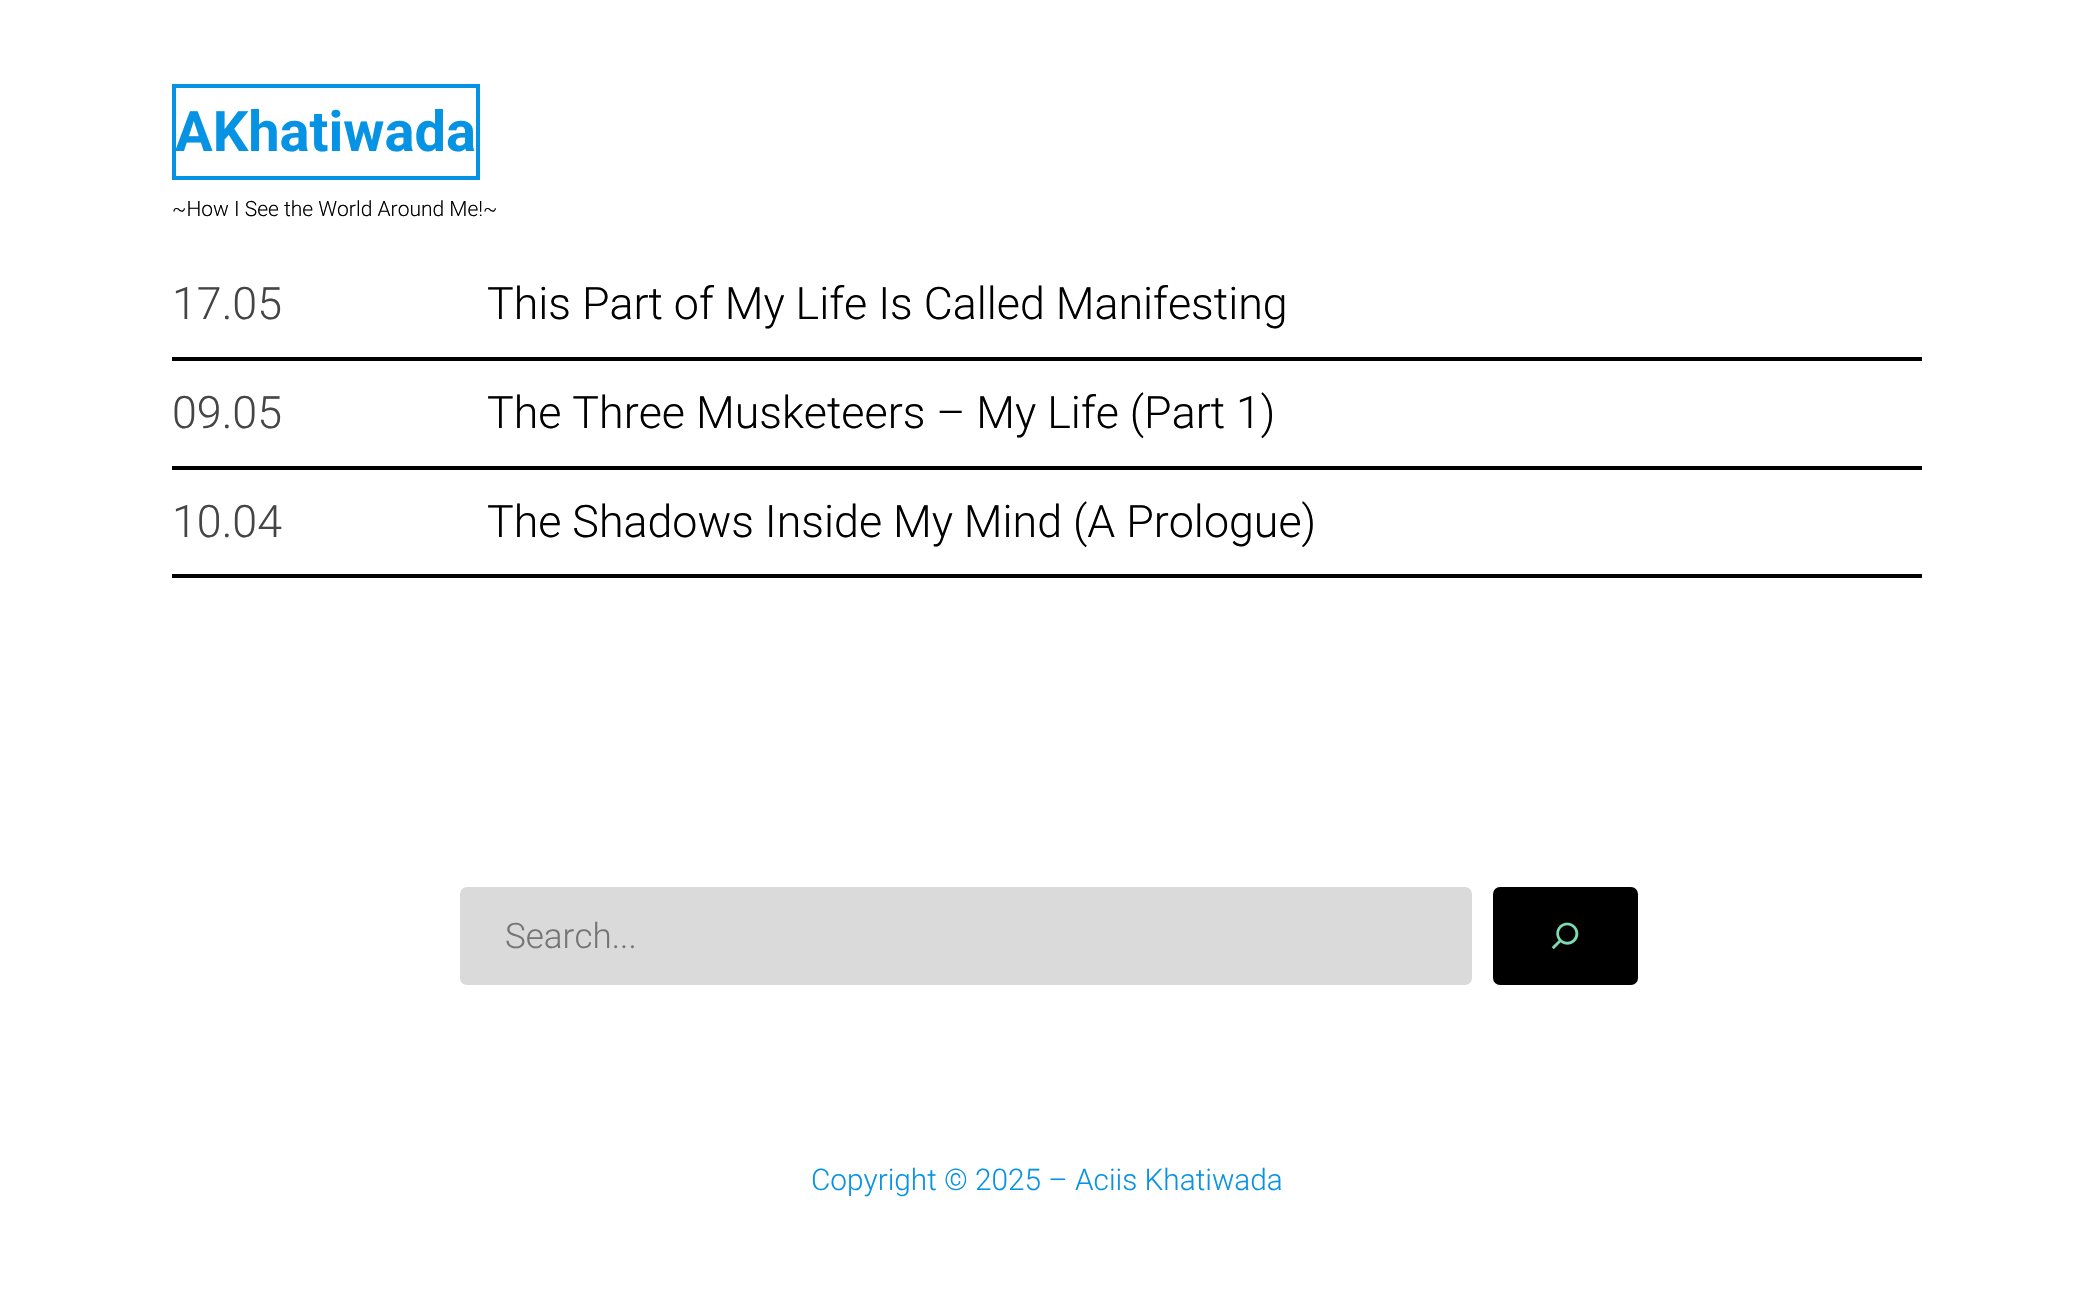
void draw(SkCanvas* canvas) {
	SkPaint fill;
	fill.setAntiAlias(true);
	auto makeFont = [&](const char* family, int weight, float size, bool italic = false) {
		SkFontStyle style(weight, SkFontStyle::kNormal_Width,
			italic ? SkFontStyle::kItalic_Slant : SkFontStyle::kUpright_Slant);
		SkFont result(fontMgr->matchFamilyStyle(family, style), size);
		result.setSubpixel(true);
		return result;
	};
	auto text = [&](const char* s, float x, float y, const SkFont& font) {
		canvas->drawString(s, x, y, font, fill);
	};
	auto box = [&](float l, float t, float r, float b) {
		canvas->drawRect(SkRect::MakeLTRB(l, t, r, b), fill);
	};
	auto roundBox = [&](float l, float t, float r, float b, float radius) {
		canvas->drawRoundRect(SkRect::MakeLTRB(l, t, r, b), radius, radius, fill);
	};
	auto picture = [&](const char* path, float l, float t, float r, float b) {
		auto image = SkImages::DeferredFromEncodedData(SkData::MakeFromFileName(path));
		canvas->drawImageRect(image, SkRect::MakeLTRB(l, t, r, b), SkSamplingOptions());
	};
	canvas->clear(0xFFFFFFFF);
	fill.setStyle(SkPaint::kStroke_Style);
	fill.setStrokeWidth(4);
	fill.setColor(0xFF0693E3);
	canvas->drawRect(SkRect::MakeLTRB(174, 86, 478, 178), fill);
	fill.setStyle(SkPaint::kFill_Style);
	fill.setColor(0xFF000000);
	box(172, 357, 1922, 361);
	box(172, 466, 1922, 470);
	box(172, 574, 1922, 578);
	fill.setColor(0xFFDADADA);
	roundBox(460, 887, 1472, 985, 7);
	fill.setColor(0xFF000000);
	roundBox(1493, 887, 1638, 985, 7);
	picture("image0.png", 1551, 922, 1579, 950);
	auto font1 = makeFont("Roboto", 700, 56);
	fill.setColor(0xFF0693E3);
	text("AKhatiwada", 175, 151, font1);
	auto font2 = makeFont("Roboto", 300, 21);
	fill.setColor(0xFF000000);
	text("~How I See the World Around Me!~", 172, 216, font2);
	auto font3 = makeFont("Roboto", 300, 44.75f);
	fill.setColor(0xFF454545);
	text("17.05", 172, 319, font3);
	fill.setColor(0xFF000000);
	text("This Part of My Life Is Called Manifesting", 487, 319, font3);
	fill.setColor(0xFF454545);
	text("09.05", 172, 428, font3);
	fill.setColor(0xFF000000);
	text("The Three Musketeers – My Life (Part 1)", 487, 428, font3);
	fill.setColor(0xFF454545);
	text("10.04", 172, 537, font3);
	fill.setColor(0xFF000000);
	text("The Shadows Inside My Mind (A Prologue)", 487, 537, font3);
	auto font4 = makeFont("Roboto", 300, 35);
	fill.setColor(0xFF757575);
	text("Search...", 505, 948, font4);
	auto font5 = makeFont("Roboto", 300, 29.75f);
	fill.setColor(0xFF0693E3);
	text("Copyright © 2025 – Aciis Khatiwada", 811, 1190, font5);
}
